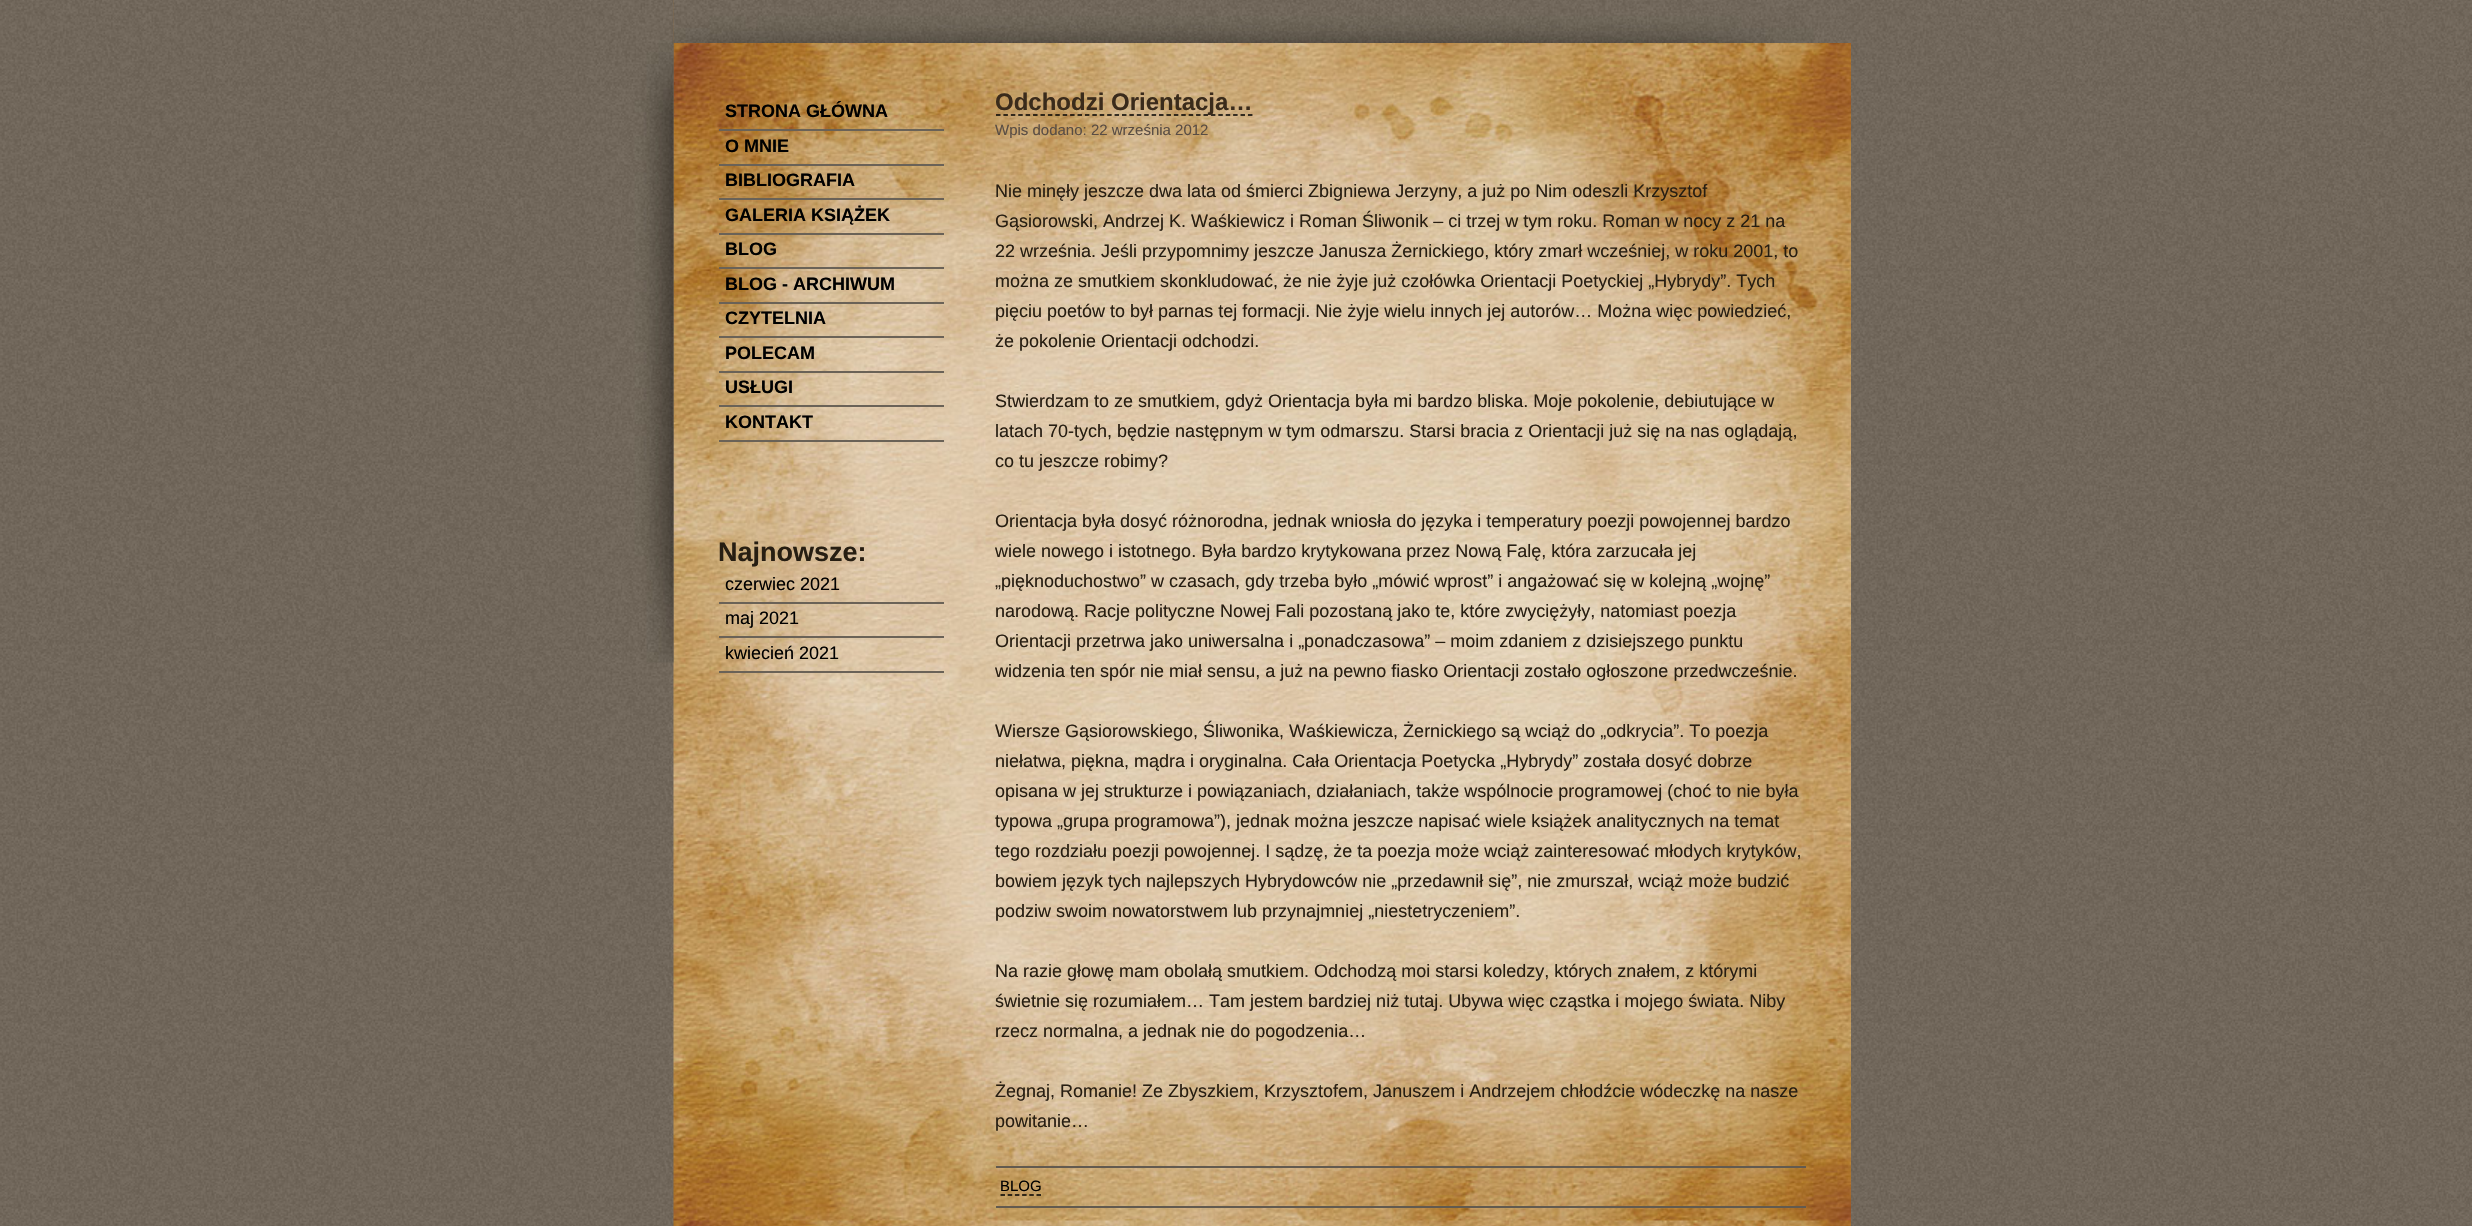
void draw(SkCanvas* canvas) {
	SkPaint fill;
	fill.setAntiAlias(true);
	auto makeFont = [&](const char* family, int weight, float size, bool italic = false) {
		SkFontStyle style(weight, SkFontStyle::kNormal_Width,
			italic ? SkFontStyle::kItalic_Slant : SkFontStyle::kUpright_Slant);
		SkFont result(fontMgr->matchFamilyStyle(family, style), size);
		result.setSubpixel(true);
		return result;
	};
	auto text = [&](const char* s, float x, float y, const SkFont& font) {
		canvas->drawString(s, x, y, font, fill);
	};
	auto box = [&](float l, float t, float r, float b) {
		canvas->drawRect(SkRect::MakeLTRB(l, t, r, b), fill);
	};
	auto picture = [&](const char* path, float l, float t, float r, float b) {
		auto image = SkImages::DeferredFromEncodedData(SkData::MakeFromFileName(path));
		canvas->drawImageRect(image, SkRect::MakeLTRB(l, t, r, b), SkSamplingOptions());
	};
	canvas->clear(0xFFFFFFFF);
	picture("image0.png", 0, 0, 2472, 1226);
	picture("image3.png", 673, 0, 1851, 1226);
	picture("image1.png", 622, 0, 674, 663);
	picture("image2.png", 673, 0, 1851, 43);
	fill.setColor(0xFF6A6257);
	box(719, 129, 944, 131);
	box(719, 164, 944, 166);
	box(719, 198, 944, 200);
	box(719, 233, 944, 235);
	box(719, 267, 944, 269);
	box(719, 302, 944, 304);
	box(719, 336, 944, 338);
	box(719, 371, 944, 373);
	box(719, 405, 944, 407);
	box(719, 440, 944, 442);
	box(719, 602, 944, 604);
	box(719, 636, 944, 638);
	box(719, 671, 944, 673);
	fill.setStyle(SkPaint::kStroke_Style);
	fill.setStrokeWidth(1.5f);
	fill.setColor(0xFF000000);
	fill.setPathEffect(SkDashPathEffect::Make({{4.5f, 2.91f}}, 0));
	canvas->drawPath(SkPathBuilder().moveTo(996, 115).lineTo(1252.5f, 115).detach(), fill);
	fill.setPathEffect(nullptr);
	fill.setStyle(SkPaint::kFill_Style);
	fill.setColor(0xFF625A4F);
	box(996, 1166, 1806, 1168);
	box(996, 1206, 1806, 1208);
	fill.setStyle(SkPaint::kStroke_Style);
	fill.setColor(0xFF000000);
	fill.setPathEffect(SkDashPathEffect::Make({{4.5f, 2.7f}}, 0));
	canvas->drawPath(SkPathBuilder().moveTo(1000.5f, 1195).lineTo(1041, 1195).detach(), fill);
	fill.setPathEffect(nullptr);
	auto font1 = makeFont("Liberation Sans", 700, 18);
	fill.setStyle(SkPaint::kFill_Style);
	text("STRONA GŁÓWNA", 725, 117, font1);
	text("O MNIE", 725, 152, font1);
	text("BIBLIOGRAFIA", 725, 186, font1);
	text("GALERIA KSIĄŻEK", 725, 221, font1);
	text("BLOG", 725, 255, font1);
	text("BLOG - ARCHIWUM", 725, 290, font1);
	text("CZYTELNIA", 725, 324, font1);
	text("POLECAM", 725, 359, font1);
	text("USŁUGI", 725, 393, font1);
	text("KONTAKT", 725, 428, font1);
	auto font2 = makeFont("Liberation Sans", 700, 27);
	fill.setColor(0xFF271E12);
	text("Najnowsze:", 718, 561, font2);
	auto font3 = makeFont("Liberation Sans", 400, 18);
	fill.setColor(0xFF000000);
	text("czerwiec 2021", 725, 590, font3);
	text("maj 2021", 725, 624, font3);
	text("kwiecień 2021", 725, 659, font3);
	auto font4 = makeFont("Liberation Sans", 700, 24);
	fill.setColor(0xFF3A2B1B);
	text("Odchodzi Orientacja…", 995, 110, font4);
	auto font5 = makeFont("Liberation Sans", 400, 15);
	fill.setColor(0xFF594D44);
	text("Wpis dodano: 22 września 2012", 995, 135, font5);
	fill.setColor(0xFF271E12);
	text("Nie minęły jeszcze dwa lata od śmierci Zbigniewa Jerzyny, a już po Nim odeszli Krzysztof", 995, 197, font3);
	text("Gąsiorowski, Andrzej K. Waśkiewicz i Roman Śliwonik – ci trzej w tym roku. Roman w nocy z 21 na", 995, 227, font3);
	text("22 września. Jeśli przypomnimy jeszcze Janusza Żernickiego, który zmarł wcześniej, w roku 2001, to", 995, 257, font3);
	text("można ze smutkiem skonkludować, że nie żyje już czołówka Orientacji Poetyckiej „Hybrydy”. Tych", 995, 287, font3);
	text("pięciu poetów to był parnas tej formacji. Nie żyje wielu innych jej autorów… Można więc powiedzieć,", 995, 317, font3);
	text("że pokolenie Orientacji odchodzi.", 995, 347, font3);
	text("Stwierdzam to ze smutkiem, gdyż Orientacja była mi bardzo bliska. Moje pokolenie, debiutujące w", 995, 407, font3);
	text("latach 70-tych, będzie następnym w tym odmarszu. Starsi bracia z Orientacji już się na nas oglądają,", 995, 437, font3);
	text("co tu jeszcze robimy?", 995, 467, font3);
	text("Orientacja była dosyć różnorodna, jednak wniosła do języka i temperatury poezji powojennej bardzo", 995, 527, font3);
	text("wiele nowego i istotnego. Była bardzo krytykowana przez Nową Falę, która zarzucała jej", 995, 557, font3);
	text("„pięknoduchostwo” w czasach, gdy trzeba było „mówić wprost” i angażować się w kolejną „wojnę”", 995, 587, font3);
	text("narodową. Racje polityczne Nowej Fali pozostaną jako te, które zwyciężyły, natomiast poezja", 995, 617, font3);
	text("Orientacji przetrwa jako uniwersalna i „ponadczasowa” – moim zdaniem z dzisiejszego punktu", 995, 647, font3);
	text("widzenia ten spór nie miał sensu, a już na pewno fiasko Orientacji zostało ogłoszone przedwcześnie.", 995, 677, font3);
	text("Wiersze Gąsiorowskiego, Śliwonika, Waśkiewicza, Żernickiego są wciąż do „odkrycia”. To poezja", 995, 737, font3);
	text("niełatwa, piękna, mądra i oryginalna. Cała Orientacja Poetycka „Hybrydy” została dosyć dobrze", 995, 767, font3);
	text("opisana w jej strukturze i powiązaniach, działaniach, także wspólnocie programowej (choć to nie była", 995, 797, font3);
	text("typowa „grupa programowa”), jednak można jeszcze napisać wiele książek analitycznych na temat", 995, 827, font3);
	text("tego rozdziału poezji powojennej. I sądzę, że ta poezja może wciąż zainteresować młodych krytyków,", 995, 857, font3);
	text("bowiem język tych najlepszych Hybrydowców nie „przedawnił się”, nie zmurszał, wciąż może budzić", 995, 887, font3);
	text("podziw swoim nowatorstwem lub przynajmniej „niestetryczeniem”.", 995, 917, font3);
	text("Na razie głowę mam obolałą smutkiem. Odchodzą moi starsi koledzy, których znałem, z którymi", 995, 977, font3);
	text("świetnie się rozumiałem… Tam jestem bardziej niż tutaj. Ubywa więc cząstka i mojego świata. Niby", 995, 1007, font3);
	text("rzecz normalna, a jednak nie do pogodzenia…", 995, 1037, font3);
	text("Żegnaj, Romanie! Ze Zbyszkiem, Krzysztofem, Januszem i Andrzejem chłodźcie wódeczkę na nasze", 995, 1097, font3);
	text("powitanie…", 995, 1127, font3);
	fill.setColor(0xFF000000);
	text("BLOG", 1000, 1191, font5);
}
